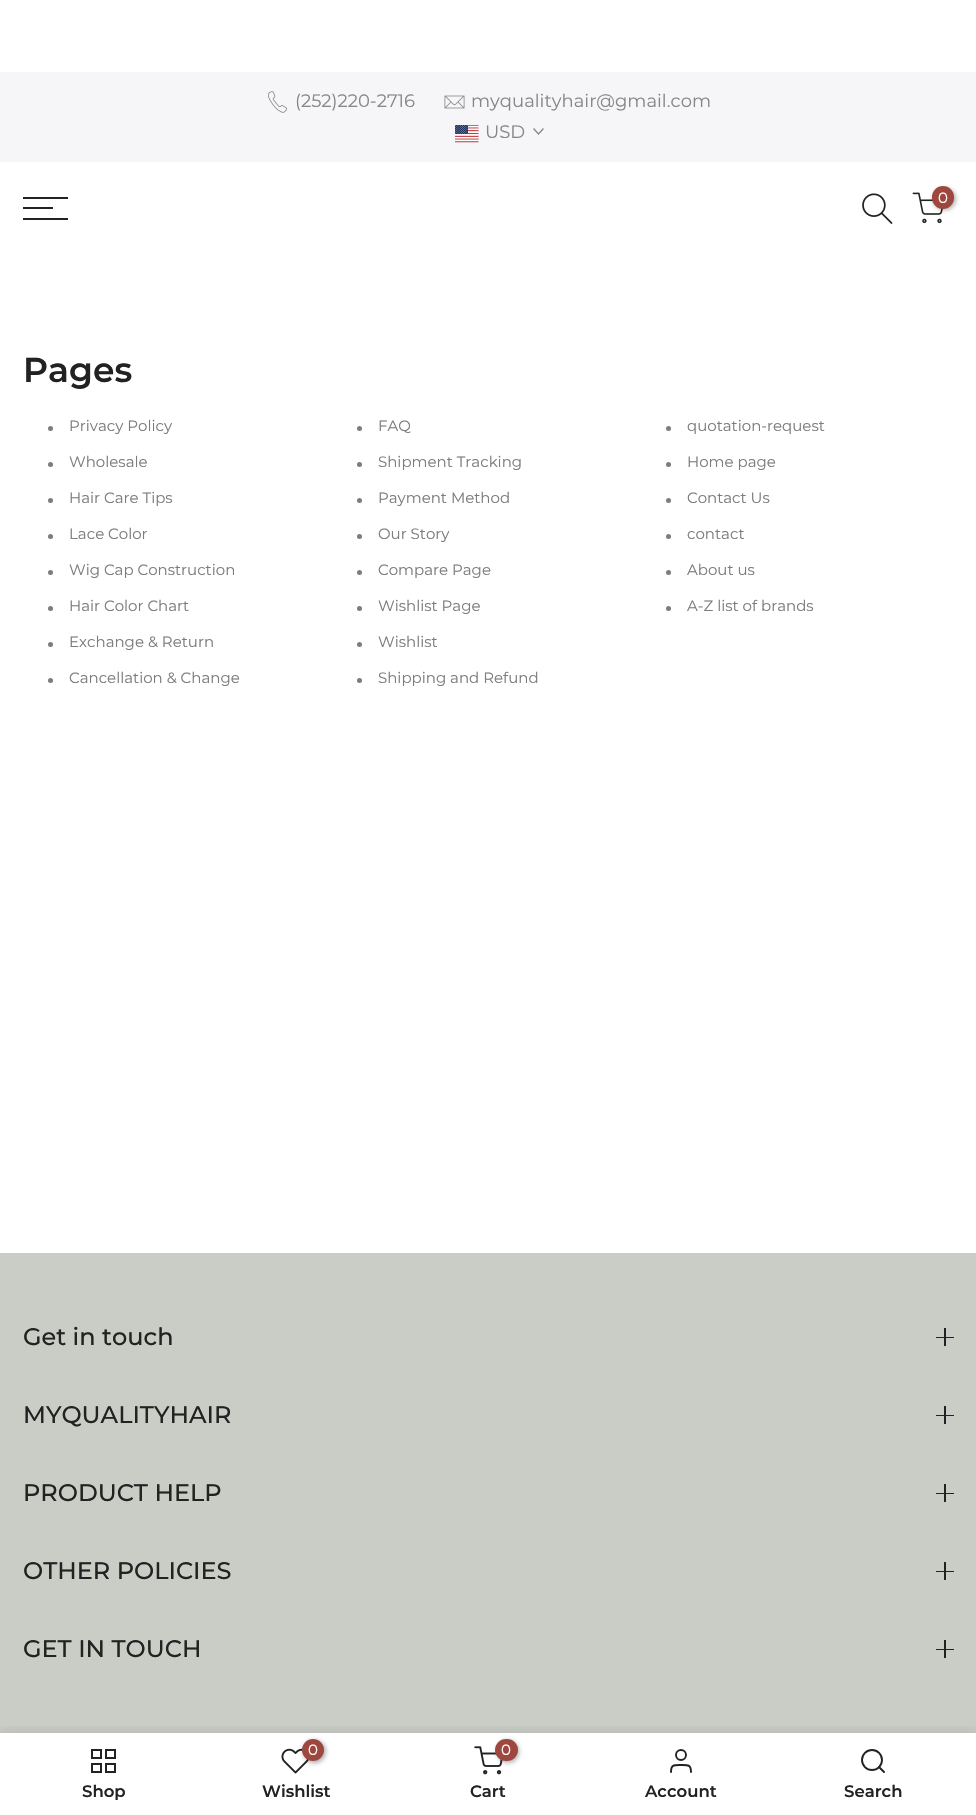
void draw(SkCanvas* canvas) {
	SkPaint fill;
	fill.setAntiAlias(true);
	auto makeFont = [&](const char* family, int weight, float size, bool italic = false) {
		SkFontStyle style(weight, SkFontStyle::kNormal_Width,
			italic ? SkFontStyle::kItalic_Slant : SkFontStyle::kUpright_Slant);
		SkFont result(fontMgr->matchFamilyStyle(family, style), size);
		result.setSubpixel(true);
		return result;
	};
	auto text = [&](const char* s, float x, float y, const SkFont& font) {
		canvas->drawString(s, x, y, font, fill);
	};
	auto box = [&](float l, float t, float r, float b) {
		canvas->drawRect(SkRect::MakeLTRB(l, t, r, b), fill);
	};
	auto roundBox = [&](float l, float t, float r, float b, float radius) {
		canvas->drawRoundRect(SkRect::MakeLTRB(l, t, r, b), radius, radius, fill);
	};
	auto picture = [&](const char* path, float l, float t, float r, float b) {
		auto image = SkImages::DeferredFromEncodedData(SkData::MakeFromFileName(path));
		canvas->drawImageRect(image, SkRect::MakeLTRB(l, t, r, b), SkSamplingOptions());
	};
	canvas->clear(0xFFFFFFFF);
	fill.setColor(0xFFF6F6F8);
	box(0, 72, 976, 162);
	picture("image0.png", 268, 91, 287, 113);
	picture("image1.png", 444, 95, 465, 109);
	picture("image2.png", 455, 125, 479, 143);
	fill.setStyle(SkPaint::kStroke_Style);
	fill.setStrokeWidth(1.3f);
	fill.setStrokeCap(SkPaint::kSquare_Cap);
	fill.setColor(0xFF878787);
	canvas->drawPath(SkPathBuilder().moveTo(543, 129).lineTo(538.5f, 134).lineTo(534, 129).detach(), fill);
	fill.setStyle(SkPaint::kFill_Style);
	fill.setColor(0xFF222222);
	box(23, 197, 68, 199);
	box(23, 207, 53, 209);
	box(23, 218, 68, 220);
	picture("image3.png", 862, 193, 893, 224);
	picture("image4.png", 912, 192, 943, 224);
	fill.setColor(0x4D000000);
	fill.setMaskFilter(SkMaskFilter::MakeBlur(kNormal_SkBlurStyle, 2));
	canvas->drawRoundRect(SkRect::MakeLTRB(933, 188, 956, 210), 11, 11, fill);
	fill.setMaskFilter(nullptr);
	fill.setColor(0xFF9D473F);
	roundBox(932, 186, 954, 209, 11);
	fill.setColor(0xFF7C7C7C);
	canvas->drawCircle(50.5f, 428.5f, 2.5f, fill);
	canvas->drawCircle(359.5f, 428.5f, 2.5f, fill);
	canvas->drawCircle(668.5f, 428.5f, 2.5f, fill);
	canvas->drawCircle(50.5f, 464.5f, 2.5f, fill);
	canvas->drawCircle(359.5f, 464.5f, 2.5f, fill);
	canvas->drawCircle(668.5f, 464.5f, 2.5f, fill);
	canvas->drawCircle(50.5f, 500.5f, 2.5f, fill);
	canvas->drawCircle(359.5f, 500.5f, 2.5f, fill);
	canvas->drawCircle(668.5f, 500.5f, 2.5f, fill);
	canvas->drawCircle(50.5f, 536.5f, 2.5f, fill);
	canvas->drawCircle(359.5f, 536.5f, 2.5f, fill);
	canvas->drawCircle(668.5f, 536.5f, 2.5f, fill);
	canvas->drawCircle(50.5f, 572.5f, 2.5f, fill);
	canvas->drawCircle(359.5f, 572.5f, 2.5f, fill);
	canvas->drawCircle(668.5f, 572.5f, 2.5f, fill);
	canvas->drawCircle(50.5f, 608.5f, 2.5f, fill);
	canvas->drawCircle(359.5f, 608.5f, 2.5f, fill);
	canvas->drawCircle(668.5f, 608.5f, 2.5f, fill);
	canvas->drawCircle(50.5f, 644.5f, 2.5f, fill);
	canvas->drawCircle(359.5f, 644.5f, 2.5f, fill);
	canvas->drawCircle(50.5f, 680.5f, 2.5f, fill);
	canvas->drawCircle(359.5f, 680.5f, 2.5f, fill);
	fill.setColor(0xFFCACDC6);
	box(0, 1253, 976, 1733);
	fill.setColor(0xFF222222);
	box(944, 1328, 946, 1346);
	box(936, 1337, 954, 1338);
	box(944, 1406, 946, 1424);
	box(936, 1415, 954, 1416);
	box(944, 1484, 946, 1502);
	box(936, 1493, 954, 1494);
	box(944, 1562, 946, 1580);
	box(936, 1571, 954, 1572);
	box(944, 1640, 946, 1658);
	box(936, 1649, 954, 1650);
	canvas->save();
	canvas->clipRect(SkRect::MakeLTRB(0, 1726, 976, 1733));
	fill.setColor(0x1F000000);
	fill.setMaskFilter(SkMaskFilter::MakeBlur(kNormal_SkBlurStyle, 7));
	canvas->drawRect(SkRect::MakeLTRB(0, 1733, 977, 1815), fill);
	fill.setMaskFilter(nullptr);
	canvas->restore();
	fill.setStyle(SkPaint::kStroke_Style);
	fill.setStrokeWidth(2);
	fill.setStrokeCap(SkPaint::kButt_Cap);
	fill.setColor(0xFF222222);
	canvas->drawRect(SkRect::MakeLTRB(92, 1750, 101, 1758), fill);
	canvas->drawRect(SkRect::MakeLTRB(106, 1750, 115, 1758), fill);
	canvas->drawRect(SkRect::MakeLTRB(92, 1764, 101, 1772), fill);
	canvas->drawRect(SkRect::MakeLTRB(106, 1764, 115, 1772), fill);
	picture("image5.png", 281, 1748, 309, 1774);
	fill.setStyle(SkPaint::kFill_Style);
	fill.setColor(0x4D000000);
	fill.setMaskFilter(SkMaskFilter::MakeBlur(kNormal_SkBlurStyle, 2));
	canvas->drawRoundRect(SkRect::MakeLTRB(303, 1740, 326, 1763), 11.5f, 11.5f, fill);
	fill.setMaskFilter(nullptr);
	fill.setColor(0xFF9D473F);
	canvas->drawCircle(313, 1750, 11, fill);
	picture("image6.png", 474, 1746, 503, 1775);
	fill.setColor(0x4D000000);
	fill.setMaskFilter(SkMaskFilter::MakeBlur(kNormal_SkBlurStyle, 2));
	canvas->drawRoundRect(SkRect::MakeLTRB(497, 1740, 519, 1763), 11, 11, fill);
	fill.setMaskFilter(nullptr);
	fill.setColor(0xFF9D473F);
	roundBox(495, 1739, 518, 1761, 11);
	fill.setStyle(SkPaint::kStroke_Style);
	fill.setStrokeWidth(1.9f);
	fill.setColor(0xFF222222);
	canvas->drawCircle(681, 1755, 5, fill);
	fill.setStrokeCap(SkPaint::kRound_Cap);
	fill.setStrokeJoin(SkPaint::kRound_Join);
	canvas->drawPath(SkPathBuilder().moveTo(691, 1772).cubicTo(691, 1764.5f, 688, 1765, 681, 1765).cubicTo(674, 1765, 671, 1764.5f, 671, 1772).detach(), fill);
	fill.setStrokeCap(SkPaint::kButt_Cap);
	fill.setStrokeJoin(SkPaint::kMiter_Join);
	canvas->drawCircle(872, 1760, 10, fill);
	fill.setStrokeCap(SkPaint::kRound_Cap);
	fill.setStrokeJoin(SkPaint::kRound_Join);
	canvas->drawPath(SkPathBuilder().moveTo(884, 1772).lineTo(879, 1767).detach(), fill);
	auto font1 = makeFont("Montserrat", 400, 18);
	fill.setStyle(SkPaint::kFill_Style);
	fill.setColor(0xFF878787);
	text("(252)220-2716", 295, 107, font1);
	text("myqualityhair@gmail.com", 471, 107, font1);
	text("USD", 485, 138, font1);
	auto font2 = makeFont("Montserrat", 400, 15);
	fill.setColor(0xFFFFFFFF);
	text("0", 938, 203, font2);
	auto font3 = makeFont("Montserrat", 600, 34.5f);
	fill.setColor(0xFF222222);
	text("Pages", 23, 382, font3);
	fill.setColor(0xFF7C7C7C);
	text("Privacy Policy", 69, 431, font2);
	text("FAQ", 378, 431, font2);
	text("quotation-request", 687, 431, font2);
	text("Wholesale", 69, 467, font2);
	text("Shipment Tracking", 378, 467, font2);
	text("Home page", 687, 467, font2);
	text("Hair Care Tips", 69, 503, font2);
	text("Payment Method", 378, 503, font2);
	text("Contact Us", 687, 503, font2);
	text("Lace Color", 69, 539, font2);
	text("Our Story", 378, 539, font2);
	text("contact", 687, 539, font2);
	text("Wig Cap Construction", 69, 575, font2);
	text("Compare Page", 378, 575, font2);
	text("About us", 687, 575, font2);
	text("Hair Color Chart", 69, 611, font2);
	text("Wishlist Page", 378, 611, font2);
	text("A-Z list of brands", 687, 611, font2);
	text("Exchange & Return", 69, 647, font2);
	text("Wishlist", 378, 647, font2);
	text("Cancellation & Change", 69, 683, font2);
	text("Shipping and Refund", 378, 683, font2);
	auto font4 = makeFont("Montserrat", 500, 24);
	fill.setColor(0xFF222222);
	text("Get in touch", 23, 1345, font4);
	text("MYQUALITYHAIR", 23, 1423, font4);
	text("PRODUCT HELP", 23, 1501, font4);
	text("OTHER POLICIES", 23, 1579, font4);
	text("GET IN TOUCH", 23, 1657, font4);
	canvas->save();
	canvas->clipRect(SkRect::MakeLTRB(23, 1784, 185, 1800));
	auto font5 = makeFont("Montserrat", 600, 16.5f);
	text("Shop", 82, 1797, font5);
	canvas->restore();
	fill.setColor(0xFFFFFFFF);
	text("0", 308, 1755, font2);
	fill.setColor(0xFF222222);
	text("Wishlist", 262, 1797, font5);
	fill.setColor(0xFFFFFFFF);
	text("0", 501, 1755, font2);
	fill.setColor(0xFF222222);
	text("Cart", 470, 1797, font5);
	text("Account", 645, 1797, font5);
	text("Search", 844, 1797, font5);
}
